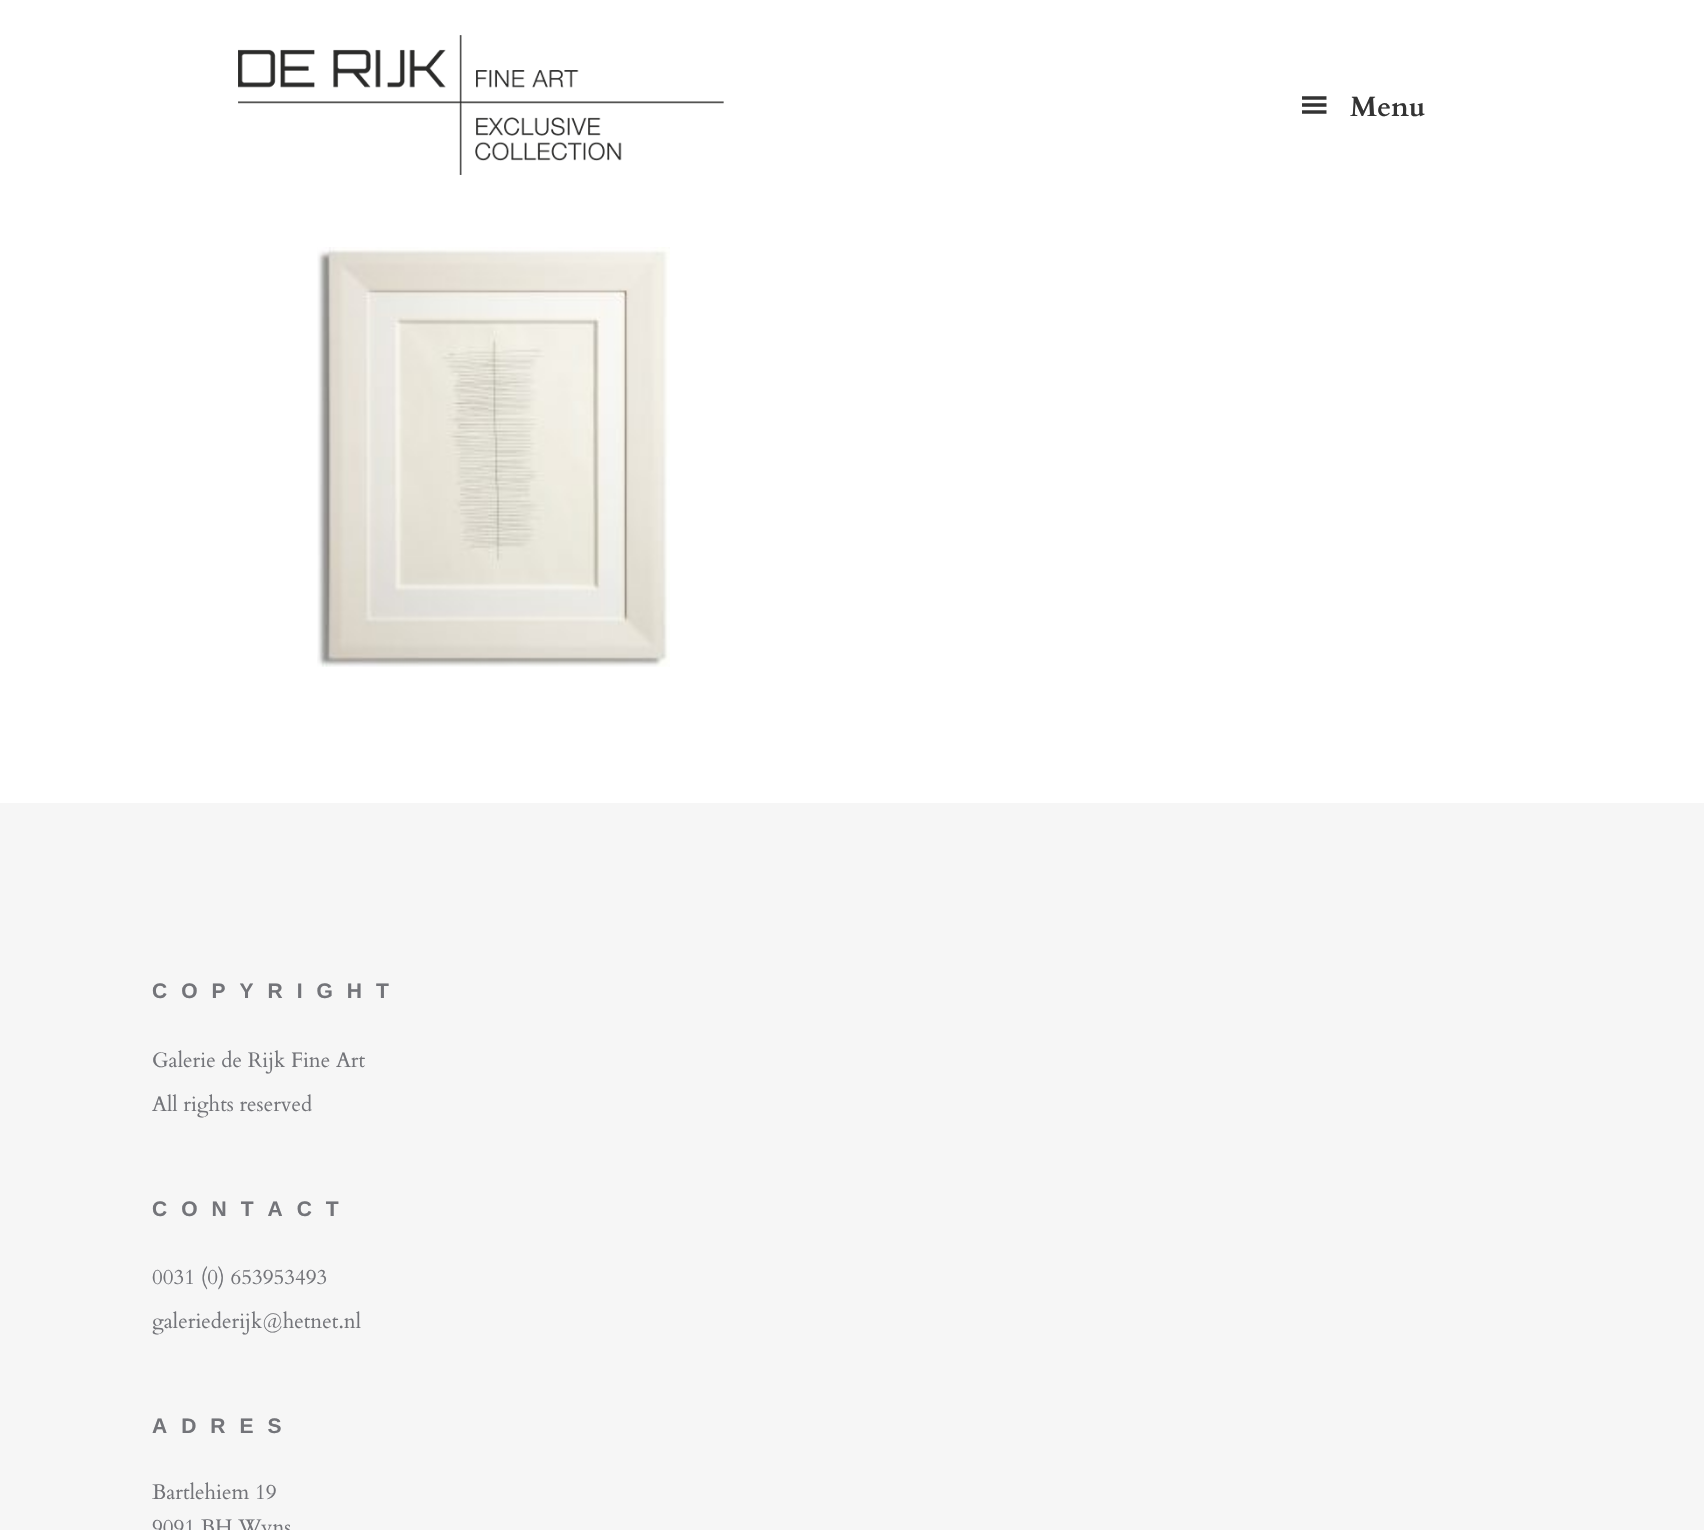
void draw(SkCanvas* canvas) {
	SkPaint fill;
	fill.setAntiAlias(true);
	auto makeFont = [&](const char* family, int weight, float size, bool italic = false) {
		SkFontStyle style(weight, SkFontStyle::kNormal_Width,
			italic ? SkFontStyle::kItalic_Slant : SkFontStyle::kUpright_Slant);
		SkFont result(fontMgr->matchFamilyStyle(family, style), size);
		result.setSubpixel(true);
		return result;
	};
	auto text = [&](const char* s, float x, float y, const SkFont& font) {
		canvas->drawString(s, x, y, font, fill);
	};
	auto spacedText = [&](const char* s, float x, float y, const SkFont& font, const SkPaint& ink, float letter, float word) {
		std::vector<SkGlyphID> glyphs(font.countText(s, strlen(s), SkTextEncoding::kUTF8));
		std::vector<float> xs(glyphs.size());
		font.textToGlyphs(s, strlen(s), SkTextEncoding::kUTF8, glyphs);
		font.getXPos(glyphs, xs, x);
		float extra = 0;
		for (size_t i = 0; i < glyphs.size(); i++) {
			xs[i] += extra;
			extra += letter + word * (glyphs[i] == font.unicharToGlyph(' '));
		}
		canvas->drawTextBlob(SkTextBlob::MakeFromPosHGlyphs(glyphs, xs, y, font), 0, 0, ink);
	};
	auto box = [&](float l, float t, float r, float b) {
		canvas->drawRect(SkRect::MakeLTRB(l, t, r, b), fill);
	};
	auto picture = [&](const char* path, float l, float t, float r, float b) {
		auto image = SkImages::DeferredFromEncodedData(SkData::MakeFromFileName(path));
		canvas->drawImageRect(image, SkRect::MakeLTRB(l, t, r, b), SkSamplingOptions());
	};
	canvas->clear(0xFFFFFFFF);
	picture("image0.png", 238, 35, 724, 175);
	picture("image1.png", 1302, 96, 1327, 114);
	picture("image2.png", 317, 247, 670, 667);
	fill.setColor(0xFFF6F6F6);
	box(0, 803, 1704, 1530);
	auto font1 = makeFont("Cardo", 700, 28);
	fill.setColor(0xFF333333);
	text("Menu", 1350, 116, font1);
	auto font2 = makeFont("Liberation Sans", 700, 21);
	fill.setColor(0xFF737479);
	spacedText("COPYRIGHT", 152, 998, font2, fill, 14, 0);
	auto font3 = makeFont("Cardo", 400, 21);
	text("Galerie de Rijk Fine Art", 152, 1067, font3);
	text("All rights reserved", 152, 1111, font3);
	spacedText("CONTACT", 152, 1216, font2, fill, 14, 0);
	text("0031 (0) 653953493", 152, 1284, font3);
	text("galeriederijk@hetnet.nl", 152, 1328, font3);
	spacedText("ADRES", 152, 1433, font2, fill, 14, 0);
	text("Bartlehiem 19", 152, 1499, font3);
	text("9091 BH Wyns", 152, 1534, font3);
}
